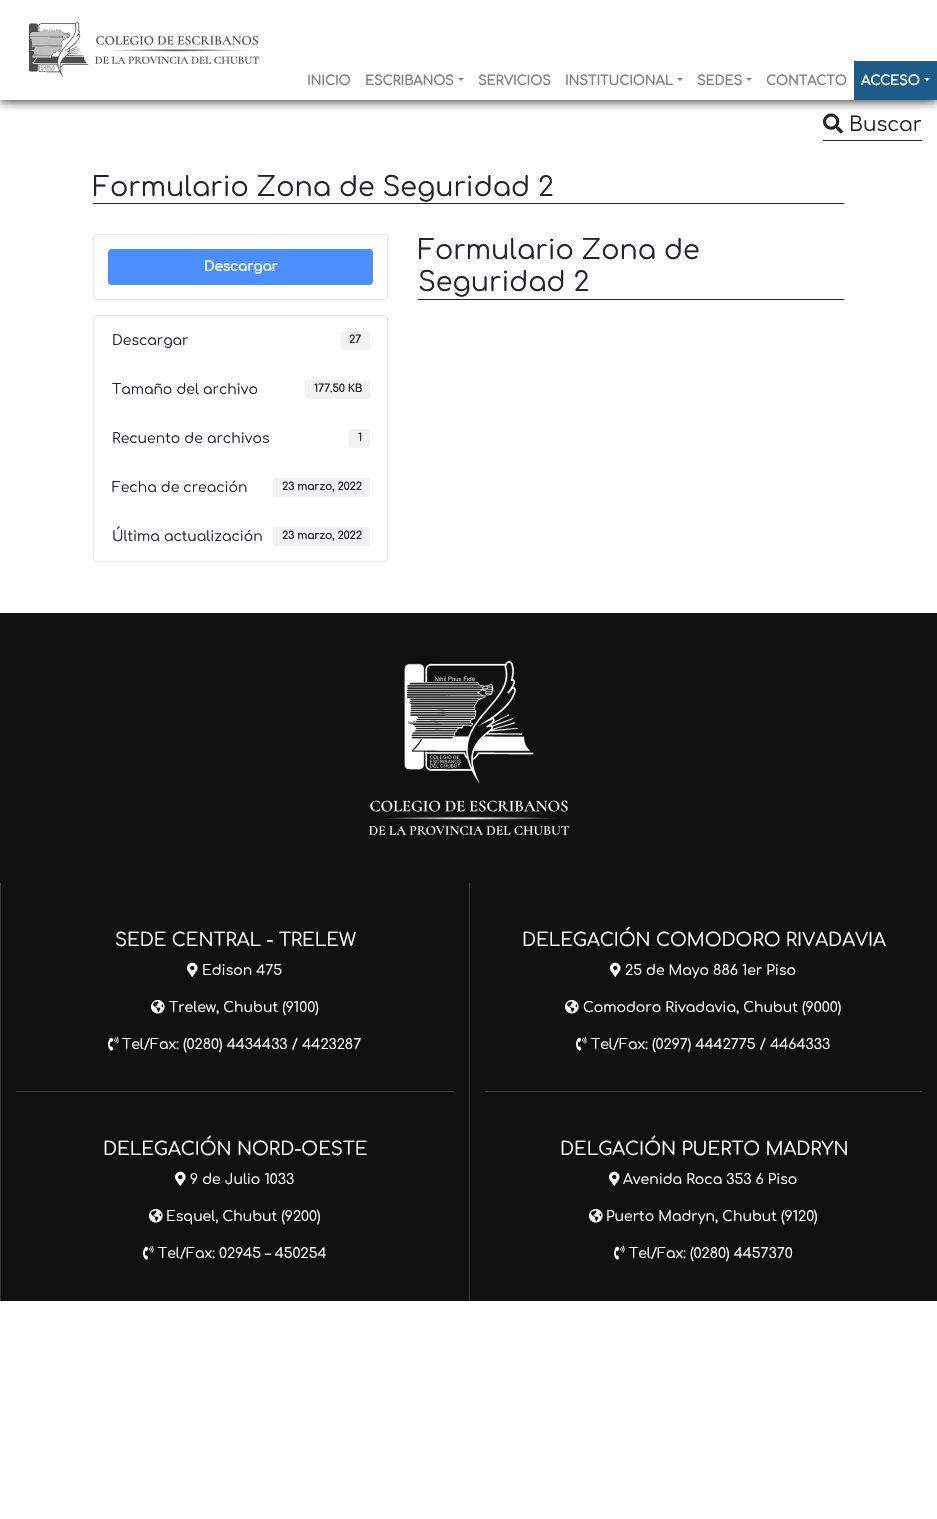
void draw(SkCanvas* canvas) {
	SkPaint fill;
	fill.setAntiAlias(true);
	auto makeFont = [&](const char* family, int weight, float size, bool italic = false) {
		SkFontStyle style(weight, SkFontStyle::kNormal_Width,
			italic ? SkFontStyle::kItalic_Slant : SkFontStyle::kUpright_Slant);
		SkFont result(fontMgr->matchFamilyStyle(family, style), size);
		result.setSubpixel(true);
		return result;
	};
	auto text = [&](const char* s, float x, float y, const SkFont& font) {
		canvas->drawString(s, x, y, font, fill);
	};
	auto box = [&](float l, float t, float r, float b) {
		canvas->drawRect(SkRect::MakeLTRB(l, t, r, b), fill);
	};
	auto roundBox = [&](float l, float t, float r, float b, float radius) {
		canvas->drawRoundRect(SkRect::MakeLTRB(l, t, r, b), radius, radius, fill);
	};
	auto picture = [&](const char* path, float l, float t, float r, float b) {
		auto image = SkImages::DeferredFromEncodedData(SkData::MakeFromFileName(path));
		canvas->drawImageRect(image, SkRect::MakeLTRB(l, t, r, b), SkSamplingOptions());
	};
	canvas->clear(0xFFFFFFFF);
	canvas->save();
	canvas->clipRect(SkRect::MakeLTRB(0, 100, 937, 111));
	fill.setColor(0xFF000000);
	fill.setMaskFilter(SkMaskFilter::MakeBlur(kNormal_SkBlurStyle, 5.5f));
	canvas->drawRect(SkRect::MakeLTRB(0, 0, 937, 100), fill);
	fill.setMaskFilter(nullptr);
	canvas->restore();
	picture("image0.png", 29, 22, 259, 78);
	fill.setColor(0xFF808080);
	canvas->drawPath(SkPathBuilder().moveTo(458, 78).lineTo(464, 78).lineTo(461, 81).close().detach(), fill);
	canvas->drawPath(SkPathBuilder().moveTo(677, 78).lineTo(683, 78).lineTo(680, 81).close().detach(), fill);
	canvas->drawPath(SkPathBuilder().moveTo(746, 78).lineTo(752, 78).lineTo(749, 81).close().detach(), fill);
	fill.setColor(0xFF1E5D8A);
	box(854, 61, 937, 100);
	fill.setColor(0xFFFFFFFF);
	canvas->drawPath(SkPathBuilder().moveTo(924, 78).lineTo(930, 78).lineTo(927, 81).close().detach(), fill);
	fill.setColor(0xFF212529);
	box(823, 140, 922, 141);
	picture("image1.png", 823, 113, 843, 134);
	box(93, 203, 844, 204);
	fill.setStyle(SkPaint::kStroke_Style);
	fill.setStrokeWidth(1);
	fill.setColor(0xFFE5E5E5);
	canvas->drawRoundRect(SkRect::MakeLTRB(93.5f, 234.5f, 387.5f, 299.5f), 2.5f, 2.5f, fill);
	fill.setStyle(SkPaint::kFill_Style);
	fill.setColor(0xFF4A8EFF);
	roundBox(108, 249, 373, 285, 4);
	fill.setStyle(SkPaint::kStroke_Style);
	fill.setColor(0xFFE5E5E5);
	canvas->drawPath(SkPathBuilder().moveTo(97, 315.5f).lineTo(384, 315.5f).cubicTo(386, 315.5f, 387.5f, 317, 387.5f, 319).lineTo(387.5f, 365.5f).lineTo(93.5f, 365.5f).lineTo(93.5f, 319).cubicTo(93.5f, 317, 95, 315.5f, 97, 315.5f).close().detach(), fill);
	fill.setStyle(SkPaint::kFill_Style);
	fill.setColor(0xFFF2F2F2);
	roundBox(341, 331, 370, 350, 3);
	fill.setColor(0xFFFFFFFF);
	box(94, 365, 387, 366);
	fill.setColor(0xFFE5E5E5);
	box(387, 365, 388, 513);
	box(93, 365, 94, 513);
	fill.setColor(0xFFF2F2F2);
	roundBox(305, 380, 370, 399, 3);
	roundBox(349, 429, 370, 448, 3);
	roundBox(273, 478, 370, 497, 3);
	fill.setColor(0xFFE5E5E5);
	canvas->drawPath(SkPathBuilder(SkPathFillType::kEvenOdd).moveTo(93, 512).lineTo(388, 512).lineTo(388, 558).cubicTo(388, 560, 386, 562, 384, 562).lineTo(96, 562).cubicTo(95, 562, 93, 560, 93, 558).close().moveTo(94, 512).lineTo(387, 512).lineTo(387, 558).cubicTo(387, 560, 386, 561, 384, 561).lineTo(96, 561).cubicTo(95, 561, 94, 560, 94, 558).close().detach(), fill);
	fill.setColor(0xFFF2F2F2);
	roundBox(273, 527, 370, 546, 3);
	fill.setColor(0xFF212529);
	box(418, 299, 844, 300);
	fill.setColor(0xFF101010);
	box(0, 613, 937, 1301);
	picture("image2.png", 369, 661, 569, 835);
	fill.setColor(0xFF363636);
	box(0, 883, 1, 1301);
	box(16, 1091, 454, 1092);
	picture("image3.png", 187, 962, 198, 977);
	picture("image4.png", 151, 1000, 165, 1014);
	picture("image5.png", 108, 1036, 119, 1051);
	box(469, 883, 470, 1301);
	box(485, 1091, 922, 1092);
	picture("image3.png", 610, 962, 621, 977);
	picture("image4.png", 565, 1000, 579, 1014);
	picture("image5.png", 576, 1036, 587, 1051);
	picture("image3.png", 175, 1171, 186, 1186);
	picture("image4.png", 149, 1209, 163, 1223);
	picture("image5.png", 143, 1245, 154, 1260);
	picture("image3.png", 609, 1171, 620, 1186);
	picture("image4.png", 589, 1209, 603, 1223);
	picture("image5.png", 614, 1245, 625, 1260);
	auto font1 = makeFont("Comfortaa", 700, 13);
	fill.setColor(0xFF808080);
	text("INICIO", 307, 85, font1);
	text("ESCRIBANOS", 365, 85, font1);
	text("SERVICIOS", 478, 85, font1);
	text("INSTITUCIONAL", 565, 85, font1);
	text("SEDES", 697, 85, font1);
	text("CONTACTO", 766, 85, font1);
	fill.setColor(0xFFFFFFFF);
	text("ACCESO", 861, 85, font1);
	auto font2 = makeFont("Comfortaa", 400, 20);
	fill.setColor(0xFF212529);
	text("Buscar", 849, 131, font2);
	auto font3 = makeFont("Comfortaa", 400, 27);
	text("Formulario Zona de Seguridad 2", 93, 196, font3);
	auto font4 = makeFont("Comfortaa", 700, 13.5f);
	fill.setColor(0xFFFFFFFF);
	text("Descargar", 204, 271, font4);
	auto font5 = makeFont("Comfortaa", 400, 14);
	fill.setColor(0xFF212529);
	text("Descargar", 112, 345, font5);
	auto font6 = makeFont("Comfortaa", 700, 10.5f);
	text("27", 349, 343, font6);
	text("Tamaño del archivo", 112, 394, font5);
	text("177.50 KB", 314, 392, font6);
	text("Recuento de archivos", 112, 443, font5);
	text("1", 358, 441, font6);
	text("Fecha de creación", 112, 492, font5);
	text("23 marzo, 2022", 282, 490, font6);
	text("Última actualización", 112, 541, font5);
	text("23 marzo, 2022", 282, 539, font6);
	text("Formulario Zona de", 418, 259, font3);
	text("Seguridad 2", 418, 291, font3);
	auto font7 = makeFont("Comfortaa", 400, 18.25f);
	fill.setColor(0xFFFFFFFF);
	text("SEDE CENTRAL - TRELEW", 115, 946, font7);
	text("Edison 475", 202, 975, font5);
	text("Trelew, Chubut (9100)", 169, 1012, font5);
	text("Tel/Fax: (0280) 4434433 / 4423287", 122, 1049, font5);
	text("DELEGACIÓN COMODORO RIVADAVIA", 522, 946, font7);
	text("25 de Mayo 886 1er Piso", 625, 975, font5);
	text("Comodoro Rivadavia, Chubut (9000)", 583, 1012, font5);
	text("Tel/Fax: (0297) 4442775 / 4464333", 591, 1049, font5);
	text("DELEGACIÓN NORD-OESTE", 103, 1155, font7);
	text("9 de Julio 1033", 190, 1184, font5);
	text("Esquel, Chubut (9200)", 166, 1221, font5);
	text("Tel/Fax: 02945 – 450254", 158, 1258, font5);
	text("DELGACIÓN PUERTO MADRYN", 560, 1155, font7);
	text("Avenida Roca 353 6 Piso", 623, 1184, font5);
	text("Puerto Madryn, Chubut (9120)", 606, 1221, font5);
	text("Tel/Fax: (0280) 4457370", 629, 1258, font5);
}
